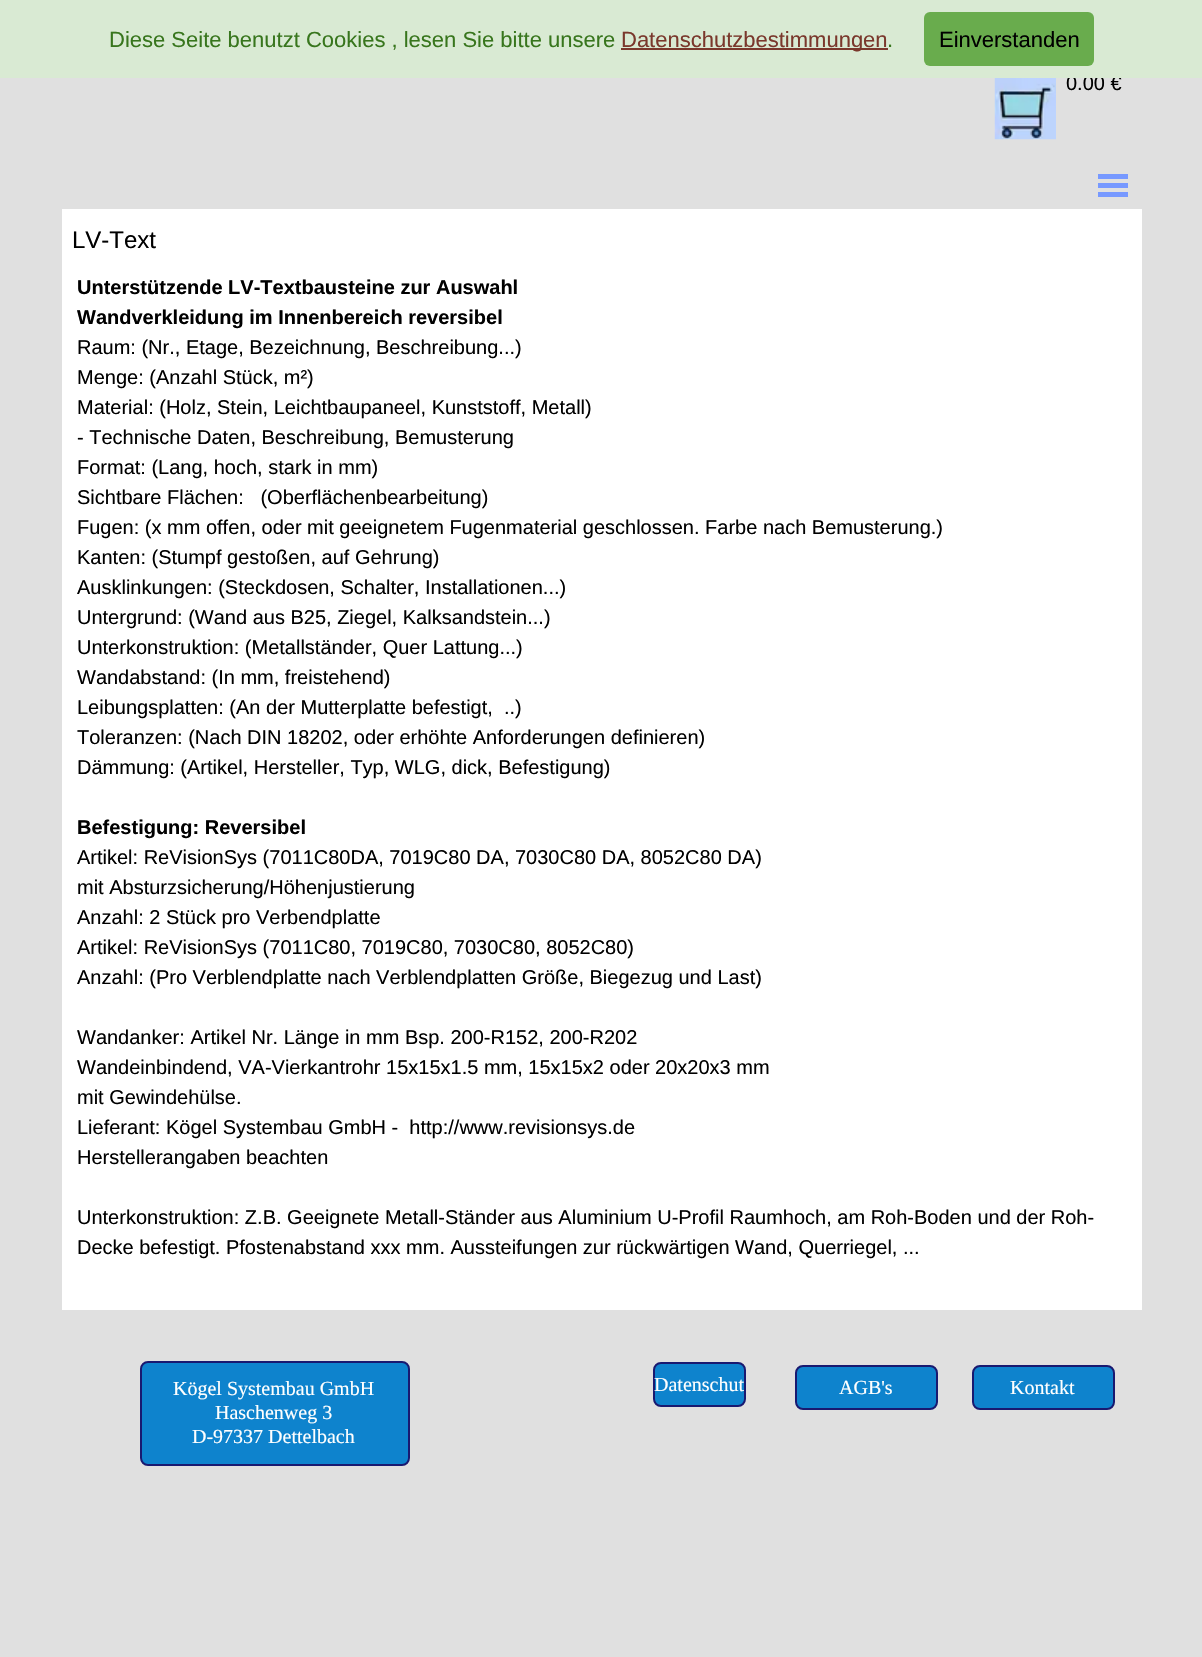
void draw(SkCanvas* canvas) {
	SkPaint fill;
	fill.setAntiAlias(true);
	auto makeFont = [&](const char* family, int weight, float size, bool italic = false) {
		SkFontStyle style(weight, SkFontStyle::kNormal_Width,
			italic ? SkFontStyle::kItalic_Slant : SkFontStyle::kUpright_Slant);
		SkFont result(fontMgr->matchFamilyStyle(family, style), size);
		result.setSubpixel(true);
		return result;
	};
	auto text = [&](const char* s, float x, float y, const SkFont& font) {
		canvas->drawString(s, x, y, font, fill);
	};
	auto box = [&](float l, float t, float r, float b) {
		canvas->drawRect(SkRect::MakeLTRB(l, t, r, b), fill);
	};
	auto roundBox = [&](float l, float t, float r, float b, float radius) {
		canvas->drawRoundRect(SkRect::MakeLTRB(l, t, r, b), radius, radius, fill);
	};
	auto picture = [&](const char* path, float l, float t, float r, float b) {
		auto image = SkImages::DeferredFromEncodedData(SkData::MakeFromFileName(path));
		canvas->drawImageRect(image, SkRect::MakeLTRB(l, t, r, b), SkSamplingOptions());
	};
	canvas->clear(0xFFE0E0E0);
	picture("image0.png", 994, 78, 1056, 140);
	fill.setColor(0xFF7799FF);
	box(1098, 174, 1128, 179);
	box(1098, 183, 1128, 188);
	box(1098, 192, 1128, 197);
	fill.setColor(0xFFFFFFFF);
	box(62, 209, 1142, 1310);
	fill.setColor(0xFF0E83CD);
	canvas->drawRoundRect(SkRect::MakeLTRB(141, 1362, 409, 1465), 7, 7, fill);
	fill.setStyle(SkPaint::kStroke_Style);
	fill.setStrokeWidth(2);
	fill.setColor(0xFF191970);
	canvas->drawRoundRect(SkRect::MakeLTRB(141, 1362, 409, 1465), 7, 7, fill);
	fill.setStyle(SkPaint::kFill_Style);
	fill.setColor(0xFF0E83CD);
	canvas->drawRoundRect(SkRect::MakeLTRB(654, 1363, 745, 1406), 7, 7, fill);
	fill.setStyle(SkPaint::kStroke_Style);
	fill.setColor(0xFF191970);
	canvas->drawRoundRect(SkRect::MakeLTRB(654, 1363, 745, 1406), 7, 7, fill);
	fill.setStyle(SkPaint::kFill_Style);
	fill.setColor(0xFF0E83CD);
	canvas->drawRoundRect(SkRect::MakeLTRB(796, 1366, 937, 1409), 7, 7, fill);
	fill.setStyle(SkPaint::kStroke_Style);
	fill.setColor(0xFF191970);
	canvas->drawRoundRect(SkRect::MakeLTRB(796, 1366, 937, 1409), 7, 7, fill);
	fill.setStyle(SkPaint::kFill_Style);
	fill.setColor(0xFF0E83CD);
	canvas->drawRoundRect(SkRect::MakeLTRB(973, 1366, 1114, 1409), 7, 7, fill);
	fill.setStyle(SkPaint::kStroke_Style);
	fill.setColor(0xFF191970);
	canvas->drawRoundRect(SkRect::MakeLTRB(973, 1366, 1114, 1409), 7, 7, fill);
	auto font1 = makeFont("Liberation Sans", 400, 20);
	fill.setStyle(SkPaint::kFill_Style);
	fill.setColor(0xFF000000);
	text("0.00 €", 1066, 90, font1);
	fill.setColor(0xFFD9EAD3);
	box(0, 0, 1202, 78);
	fill.setColor(0xFF69AC4D);
	roundBox(924, 12, 1094, 66, 6);
	auto font2 = makeFont("Liberation Sans", 400, 22);
	fill.setColor(0xFF000000);
	text("Einverstanden", 939, 47, font2);
	fill.setColor(0xFF38761D);
	text(".", 887, 47, font2);
	fill.setColor(0xFF7A382C);
	box(621, 48, 888, 50);
	text("Datenschutzbestimmungen", 621, 47, font2);
	fill.setColor(0xFF38761D);
	text("Diese Seite benutzt Cookies , lesen Sie bitte unsere", 109, 47, font2);
	auto font3 = makeFont("Liberation Sans", 400, 24);
	fill.setColor(0xFF000000);
	text("LV-Text", 72, 248, font3);
	auto font4 = makeFont("Liberation Sans", 700, 20);
	text("Unterstützende LV-Textbausteine zur Auswahl", 77, 294, font4);
	text("Wandverkleidung im Innenbereich reversibel", 77, 324, font4);
	text("Raum: (Nr., Etage, Bezeichnung, Beschreibung...)", 77, 354, font1);
	text("Menge: (Anzahl Stück, m²)", 77, 384, font1);
	text("Material: (Holz, Stein, Leichtbaupaneel, Kunststoff, Metall)", 77, 414, font1);
	text("- Technische Daten, Beschreibung, Bemusterung", 77, 444, font1);
	text("Format: (Lang, hoch, stark in mm)", 77, 474, font1);
	text("Sichtbare Flächen:   (Oberflächenbearbeitung)", 77, 504, font1);
	text("Fugen: (x mm offen, oder mit geeignetem Fugenmaterial geschlossen. Farbe nach Bemusterung.)", 77, 534, font1);
	text("Kanten: (Stumpf gestoßen, auf Gehrung)", 77, 564, font1);
	text("Ausklinkungen: (Steckdosen, Schalter, Installationen...)", 77, 594, font1);
	text("Untergrund: (Wand aus B25, Ziegel, Kalksandstein...)", 77, 624, font1);
	text("Unterkonstruktion: (Metallständer, Quer Lattung...)", 77, 654, font1);
	text("Wandabstand: (In mm, freistehend)", 77, 684, font1);
	text("Leibungsplatten: (An der Mutterplatte befestigt,  ..)", 77, 714, font1);
	text("Toleranzen: (Nach DIN 18202, oder erhöhte Anforderungen definieren)", 77, 744, font1);
	text("Dämmung: (Artikel, Hersteller, Typ, WLG, dick, Befestigung)", 77, 774, font1);
	text("Befestigung: Reversibel", 77, 834, font4);
	text("Artikel: ReVisionSys (7011C80DA, 7019C80 DA, 7030C80 DA, 8052C80 DA)", 77, 864, font1);
	text("mit Absturzsicherung/Höhenjustierung", 77, 894, font1);
	text("Anzahl: 2 Stück pro Verbendplatte", 77, 924, font1);
	text("Artikel: ReVisionSys (7011C80, 7019C80, 7030C80, 8052C80)", 77, 954, font1);
	text("Anzahl: (Pro Verblendplatte nach Verblendplatten Größe, Biegezug und Last)", 77, 984, font1);
	text("Wandanker: Artikel Nr. Länge in mm Bsp. 200-R152, 200-R202", 77, 1044, font1);
	text("Wandeinbindend, VA-Vierkantrohr 15x15x1.5 mm, 15x15x2 oder 20x20x3 mm", 77, 1074, font1);
	text("mit Gewindehülse.", 77, 1104, font1);
	text("Lieferant: Kögel Systembau GmbH -  http://www.revisionsys.de", 77, 1134, font1);
	text("Herstellerangaben beachten", 77, 1164, font1);
	text("Unterkonstruktion: Z.B. Geeignete Metall-Ständer aus Aluminium U-Profil Raumhoch, am Roh-Boden und der Roh-", 77, 1224, font1);
	text("Decke befestigt. Pfostenabstand xxx mm. Aussteifungen zur rückwärtigen Wand, Querriegel, ...", 77, 1254, font1);
	auto font5 = makeFont("Liberation Serif", 400, 20);
	fill.setColor(0xFFFFFFFF);
	text("Kögel Systembau GmbH", 173, 1395, font5);
	text("Haschenweg 3", 215, 1419, font5);
	text("D-97337 Dettelbach", 192, 1443, font5);
	text("Datenschut", 654, 1391, font5);
	text("AGB's", 839, 1394, font5);
	text("Kontakt", 1010, 1394, font5);
}
